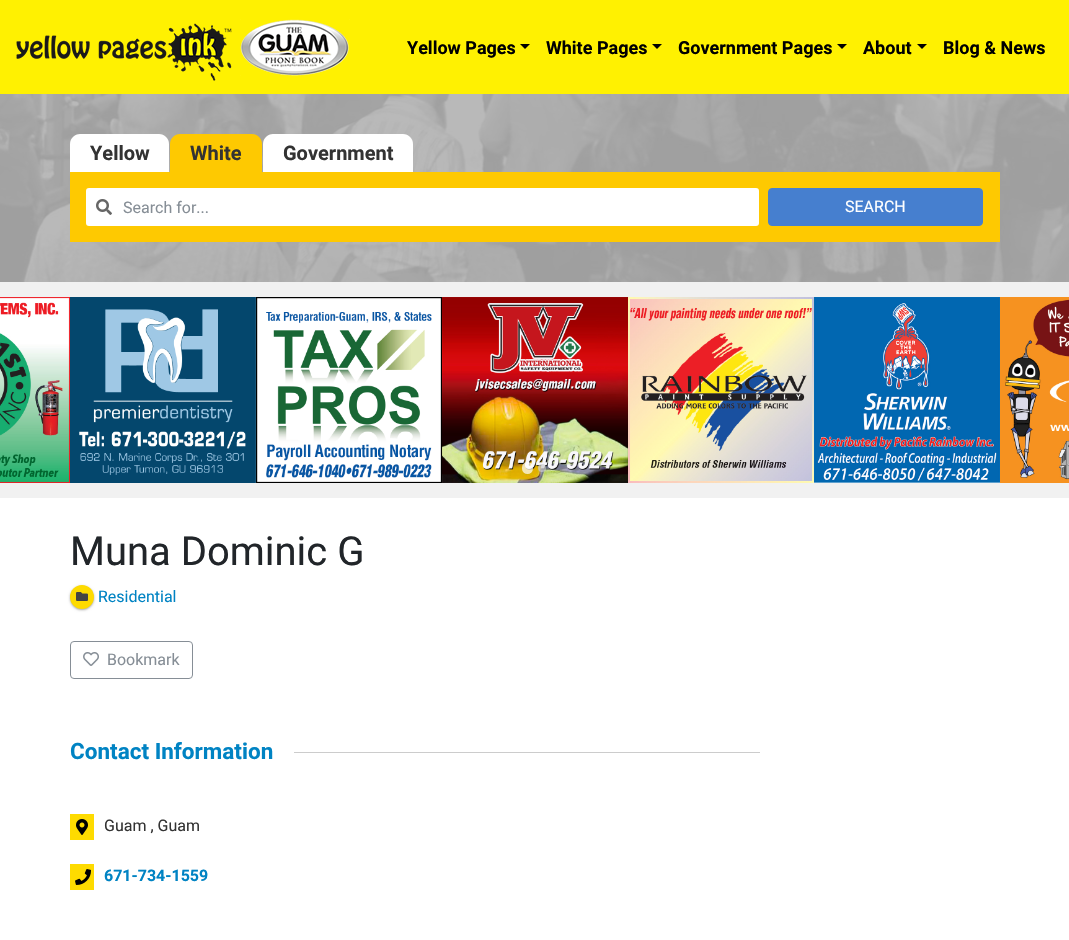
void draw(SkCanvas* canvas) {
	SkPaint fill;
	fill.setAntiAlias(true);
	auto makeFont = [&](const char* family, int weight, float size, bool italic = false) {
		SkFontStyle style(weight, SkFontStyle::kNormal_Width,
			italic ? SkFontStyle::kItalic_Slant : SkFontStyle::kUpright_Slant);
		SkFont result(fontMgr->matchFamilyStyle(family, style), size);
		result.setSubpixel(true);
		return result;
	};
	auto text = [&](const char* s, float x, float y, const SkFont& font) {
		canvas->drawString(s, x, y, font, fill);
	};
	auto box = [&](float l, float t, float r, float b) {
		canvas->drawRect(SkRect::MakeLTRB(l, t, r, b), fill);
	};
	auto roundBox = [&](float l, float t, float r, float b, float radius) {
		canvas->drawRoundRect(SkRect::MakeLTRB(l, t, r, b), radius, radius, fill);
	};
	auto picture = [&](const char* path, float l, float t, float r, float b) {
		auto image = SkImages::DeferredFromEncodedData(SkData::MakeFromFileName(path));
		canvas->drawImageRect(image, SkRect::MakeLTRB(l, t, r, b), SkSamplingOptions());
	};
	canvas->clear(0xFFFFFFFF);
	fill.setColor(0xFFFFF101);
	box(0, 0, 1069, 94);
	picture("image0.png", 16, 19, 350, 81);
	fill.setColor(0xFF000000);
	canvas->drawPath(SkPathBuilder().moveTo(520, 44).lineTo(530, 44).lineTo(525, 49).close().detach(), fill);
	canvas->drawPath(SkPathBuilder().moveTo(652, 44).lineTo(662, 44).lineTo(657, 49).close().detach(), fill);
	canvas->drawPath(SkPathBuilder().moveTo(837, 44).lineTo(847, 44).lineTo(842, 49).close().detach(), fill);
	canvas->drawPath(SkPathBuilder().moveTo(917, 44).lineTo(927, 44).lineTo(922, 49).close().detach(), fill);
	picture("image1.png", 0, 94, 1069, 282);
	fill.setColor(0xFFFFFFFF);
	canvas->drawPath(SkPathBuilder().moveTo(80, 134).lineTo(159, 134).cubicTo(164.5f, 134, 169, 138.5f, 169, 144).lineTo(169, 172).lineTo(70, 172).lineTo(70, 144).cubicTo(70, 138.5f, 74.5f, 134, 80, 134).close().detach(), fill);
	fill.setColor(0xFFFEC901);
	canvas->drawPath(SkPathBuilder().moveTo(180, 134).lineTo(252, 134).cubicTo(257.5f, 134, 262, 138.5f, 262, 144).lineTo(262, 172).lineTo(170, 172).lineTo(170, 144).cubicTo(170, 138.5f, 174.5f, 134, 180, 134).close().detach(), fill);
	fill.setColor(0xFFFFFFFF);
	canvas->drawPath(SkPathBuilder().moveTo(273, 134).lineTo(403, 134).cubicTo(408.5f, 134, 413, 138.5f, 413, 144).lineTo(413, 172).lineTo(263, 172).lineTo(263, 144).cubicTo(263, 138.5f, 267.5f, 134, 273, 134).close().detach(), fill);
	fill.setColor(0xFFFEC901);
	box(70, 172, 1000, 242);
	fill.setColor(0xFFFFFFFF);
	roundBox(86, 188, 759, 226, 3);
	picture("image2.png", 96, 199, 112, 215);
	fill.setColor(0xFF467FCF);
	canvas->drawRoundRect(SkRect::MakeLTRB(768.5f, 188.5f, 982.5f, 225.5f), 3.5f, 3.5f, fill);
	fill.setStyle(SkPaint::kStroke_Style);
	fill.setStrokeWidth(1);
	canvas->drawRoundRect(SkRect::MakeLTRB(768.5f, 188.5f, 982.5f, 225.5f), 3.5f, 3.5f, fill);
	fill.setStyle(SkPaint::kFill_Style);
	fill.setColor(0xFFF1F1F1);
	box(0, 282, 1069, 498);
	picture("image3.png", 0, 297, 70, 483);
	picture("image4.png", 70, 297, 256, 483);
	picture("image5.png", 256, 297, 442, 483);
	picture("image6.png", 442, 297, 628, 483);
	picture("image7.png", 628, 297, 814, 483);
	picture("image8.png", 814, 297, 1000, 483);
	picture("image9.png", 1000, 297, 1069, 483);
	fill.setColor(0xB3FFFFFF);
	roundBox(522, 462, 533, 474, 5.5f);
	fill.setColor(0xB3CCCCCC);
	canvas->drawCircle(542, 468, 4, fill);
	fill.setColor(0x3D000000);
	fill.setMaskFilter(SkMaskFilter::MakeBlur(kNormal_SkBlurStyle, 1));
	canvas->drawRoundRect(SkRect::MakeLTRB(70, 586, 94, 610), 12, 12, fill);
	fill.setMaskFilter(nullptr);
	fill.setColor(0x1F000000);
	fill.setMaskFilter(SkMaskFilter::MakeBlur(kNormal_SkBlurStyle, 1.5f));
	canvas->drawRoundRect(SkRect::MakeLTRB(70, 586, 94, 610), 12, 12, fill);
	fill.setMaskFilter(nullptr);
	fill.setColor(0xFFFEDB00);
	canvas->drawCircle(82, 597, 12, fill);
	picture("image10.png", 76, 592, 88, 601);
	fill.setStyle(SkPaint::kStroke_Style);
	fill.setColor(0xFF868E96);
	canvas->drawRoundRect(SkRect::MakeLTRB(70.5f, 641.5f, 192.5f, 678.5f), 3.5f, 3.5f, fill);
	picture("image11.png", 83, 652, 99, 666);
	fill.setStyle(SkPaint::kFill_Style);
	fill.setColor(0xFFCCCCCC);
	box(294, 752, 760, 753);
	fill.setColor(0xFFFEDB00);
	box(70, 814, 94, 840);
	picture("image12.png", 76, 819, 88, 835);
	box(70, 864, 94, 890);
	picture("image13.png", 75, 869, 91, 885);
	auto font1 = makeFont("Roboto", 700, 18);
	fill.setColor(0xFF000000);
	text("Yellow Pages", 407, 54, font1);
	text("White Pages", 546, 54, font1);
	text("Government Pages", 678, 54, font1);
	text("About", 863, 54, font1);
	text("Blog & News", 943, 54, font1);
	auto font2 = makeFont("Roboto", 700, 20);
	fill.setColor(0xFF333333);
	text("Yellow", 90, 160, font2);
	text("White", 190, 160, font2);
	text("Government", 283, 160, font2);
	auto font3 = makeFont("Roboto", 400, 16);
	fill.setColor(0xFF868E96);
	text("Search for...", 123, 213, font3);
	fill.setColor(0xFFFFFFFF);
	text("SEARCH", 845, 212, font3);
	auto font4 = makeFont("Roboto", 400, 40);
	fill.setColor(0xFF212529);
	text("Muna Dominic G", 70, 565, font4);
	fill.setColor(0xFF0083C3);
	text("Residential", 98, 602, font3);
	fill.setColor(0xFF868E96);
	text("Bookmark", 107, 665, font3);
	auto font5 = makeFont("Roboto", 700, 22.5f);
	fill.setColor(0xFF0083C3);
	text("Contact Information", 70, 759, font5);
	fill.setColor(0xFF333333);
	text("Guam , Guam", 104, 831, font3);
	auto font6 = makeFont("Roboto", 700, 16);
	fill.setColor(0xFF0083C3);
	text("671-734-1559", 104, 881, font6);
}
